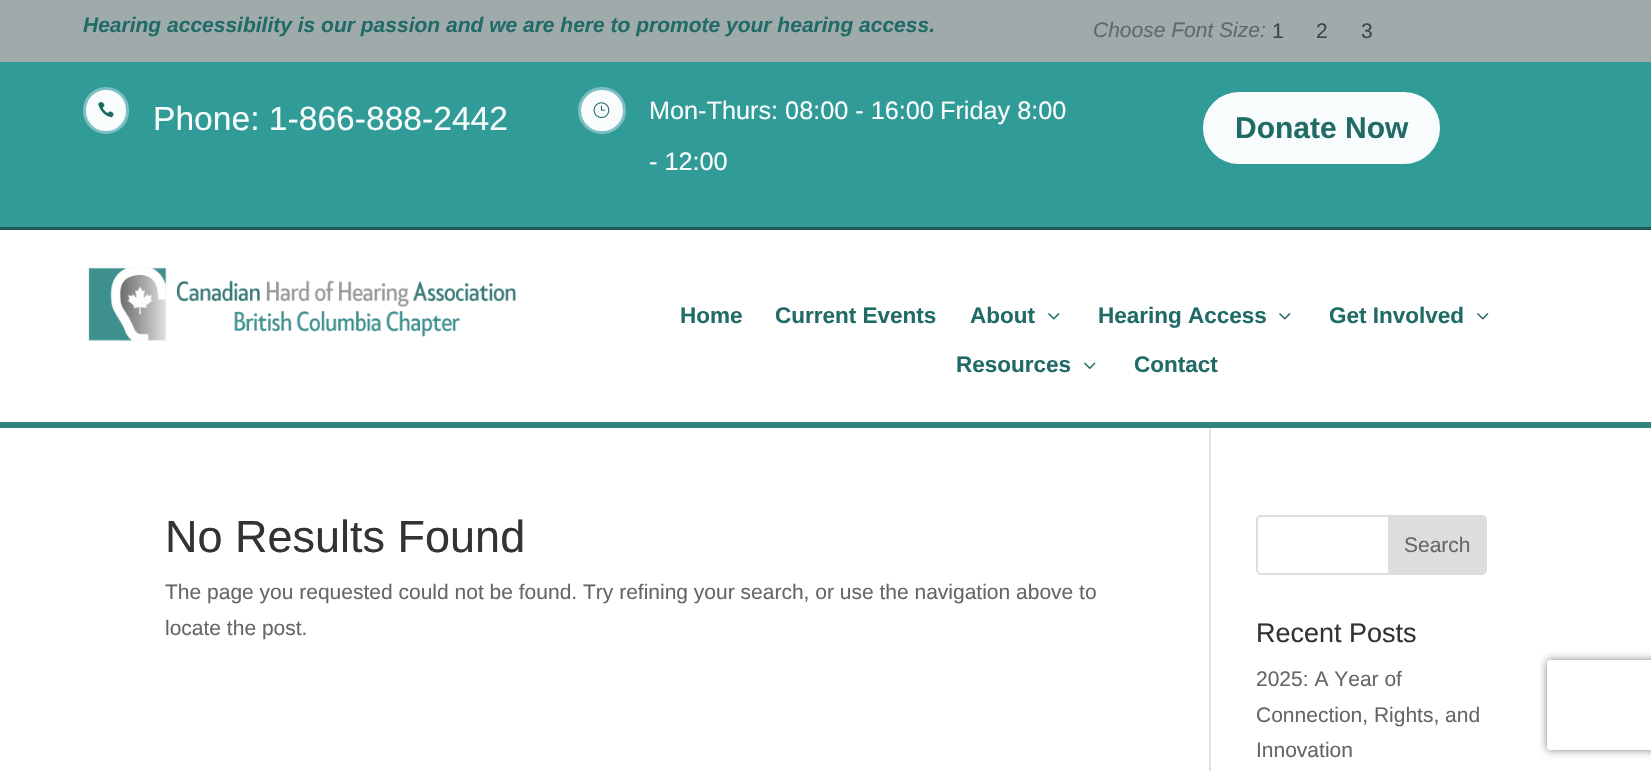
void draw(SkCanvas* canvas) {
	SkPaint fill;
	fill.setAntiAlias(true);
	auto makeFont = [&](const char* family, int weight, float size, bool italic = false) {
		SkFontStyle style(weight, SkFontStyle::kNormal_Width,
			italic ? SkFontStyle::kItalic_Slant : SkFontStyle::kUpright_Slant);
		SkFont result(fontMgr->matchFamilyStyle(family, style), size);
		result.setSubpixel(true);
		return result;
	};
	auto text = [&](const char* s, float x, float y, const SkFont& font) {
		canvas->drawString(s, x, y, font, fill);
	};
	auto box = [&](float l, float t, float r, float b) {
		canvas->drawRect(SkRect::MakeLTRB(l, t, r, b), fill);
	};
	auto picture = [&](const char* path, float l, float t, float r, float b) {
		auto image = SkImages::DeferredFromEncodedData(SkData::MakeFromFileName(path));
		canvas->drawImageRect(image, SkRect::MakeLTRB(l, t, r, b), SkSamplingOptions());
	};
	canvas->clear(0xFFFFFFFF);
	fill.setColor(0xFF9FAAAB);
	box(0, 0, 1651, 62);
	fill.setColor(0xFF309B97);
	box(0, 62, 1651, 227);
	fill.setColor(0xFFF8FCFC);
	canvas->drawRoundRect(SkRect::MakeLTRB(84.5f, 88.5f, 127.5f, 132.5f), 21.5f, 21.5f, fill);
	fill.setStyle(SkPaint::kStroke_Style);
	fill.setStrokeWidth(3);
	fill.setColor(0xFF7EBEC5);
	canvas->drawRoundRect(SkRect::MakeLTRB(84.5f, 88.5f, 127.5f, 132.5f), 21.5f, 21.5f, fill);
	picture("image0.png", 98, 102, 114, 118);
	fill.setStyle(SkPaint::kFill_Style);
	fill.setColor(0xFFF8FCFC);
	canvas->drawRoundRect(SkRect::MakeLTRB(579.5f, 88.5f, 624.5f, 132.5f), 22, 22, fill);
	fill.setStyle(SkPaint::kStroke_Style);
	fill.setColor(0xFF7EBEC5);
	canvas->drawRoundRect(SkRect::MakeLTRB(579.5f, 88.5f, 624.5f, 132.5f), 22, 22, fill);
	picture("image1.png", 593, 102, 610, 119);
	fill.setStyle(SkPaint::kFill_Style);
	fill.setColor(0xFFF8FCFC);
	canvas->drawRoundRect(SkRect::MakeLTRB(1204, 93, 1439, 163), 35, 35, fill);
	fill.setStyle(SkPaint::kStroke_Style);
	fill.setStrokeWidth(2);
	canvas->drawRoundRect(SkRect::MakeLTRB(1204, 93, 1439, 163), 35, 35, fill);
	fill.setStyle(SkPaint::kFill_Style);
	fill.setColor(0xFF215755);
	box(0, 227, 1651, 230);
	fill.setColor(0xFF318380);
	box(0, 422, 1651, 428);
	picture("image2.png", 88, 267, 516, 341);
	picture("image3.png", 1048, 313, 1060, 320);
	picture("image3.png", 1279, 313, 1291, 320);
	picture("image3.png", 1477, 313, 1489, 320);
	picture("image4.png", 1084, 362, 1096, 369);
	fill.setColor(0xFFE2E2E2);
	box(1209, 428, 1211, 771);
	fill.setStyle(SkPaint::kStroke_Style);
	fill.setColor(0xFFDDDDDD);
	canvas->drawRoundRect(SkRect::MakeLTRB(1257, 516, 1486, 574), 4, 4, fill);
	fill.setStyle(SkPaint::kFill_Style);
	canvas->drawPath(SkPathBuilder().moveTo(1389, 516).lineTo(1482, 516).cubicTo(1484, 516, 1486, 518, 1486, 520).lineTo(1486, 570).cubicTo(1486, 572, 1484, 574, 1482, 574).lineTo(1389, 574).close().detach(), fill);
	fill.setStyle(SkPaint::kStroke_Style);
	canvas->drawPath(SkPathBuilder().moveTo(1389, 516).lineTo(1482, 516).cubicTo(1484, 516, 1486, 518, 1486, 520).lineTo(1486, 570).cubicTo(1486, 572, 1484, 574, 1482, 574).lineTo(1389, 574).close().detach(), fill);
	canvas->save();
	canvas->clipPath(SkPathBuilder(SkPathFillType::kEvenOdd).moveTo(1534, 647).lineTo(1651, 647).lineTo(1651, 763).lineTo(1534, 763).close().moveTo(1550, 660).lineTo(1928, 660).cubicTo(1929.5f, 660, 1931, 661.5f, 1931, 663).lineTo(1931, 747).cubicTo(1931, 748.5f, 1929.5f, 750, 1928, 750).lineTo(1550, 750).cubicTo(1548.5f, 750, 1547, 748.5f, 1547, 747).lineTo(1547, 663).cubicTo(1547, 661.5f, 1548.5f, 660, 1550, 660).close().detach(), true);
	fill.setStyle(SkPaint::kFill_Style);
	fill.setColor(0xFF808080);
	fill.setMaskFilter(SkMaskFilter::MakeBlur(kNormal_SkBlurStyle, 4));
	canvas->drawRoundRect(SkRect::MakeLTRB(1547, 660, 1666, 750), 3, 3, fill);
	fill.setMaskFilter(nullptr);
	canvas->restore();
	auto font1 = makeFont("Liberation Sans", 700, 21, true);
	fill.setColor(0xFF216B67);
	text("Hearing accessibility is our passion and we are here to promote your hearing access.", 83, 32, font1);
	auto font2 = makeFont("Liberation Sans", 400, 21, true);
	fill.setColor(0xFF666666);
	text("Choose Font Size:", 1093, 37, font2);
	auto font3 = makeFont("Liberation Sans", 400, 21);
	fill.setColor(0xFF404444);
	text("1", 1272, 38, font3);
	text("2", 1316, 38, font3);
	text("3", 1361, 38, font3);
	auto font4 = makeFont("Liberation Sans", 400, 33.6f);
	fill.setColor(0xFFF8FCFC);
	text("Phone: 1-866-888-2442", 153, 130, font4);
	auto font5 = makeFont("Liberation Sans", 400, 25.25f);
	text("Mon-Thurs: 08:00 - 16:00", 649, 119, font5);
	text("Friday 8:00", 940, 119, font5);
	text("- 12:00", 649, 170, font5);
	auto font6 = makeFont("Liberation Sans", 700, 30);
	fill.setColor(0xFF216B67);
	text("Donate Now", 1235, 138, font6);
	auto font7 = makeFont("Liberation Sans", 700, 22.5f);
	text("Home", 680, 323, font7);
	text("Current Events", 775, 323, font7);
	text("About", 970, 323, font7);
	text("Hearing Access", 1098, 323, font7);
	text("Get Involved", 1329, 323, font7);
	text("Resources", 956, 372, font7);
	text("Contact", 1134, 372, font7);
	auto font8 = makeFont("Liberation Sans", 400, 45);
	fill.setColor(0xFF333333);
	text("No Results Found", 165, 552, font8);
	fill.setColor(0xFF666666);
	text("The page you requested could not be found. Try refining your search, or use the navigation above to", 165, 599, font3);
	text("locate the post.", 165, 635, font3);
	text("Search", 1404, 552, font3);
	auto font9 = makeFont("Liberation Sans", 400, 27);
	fill.setColor(0xFF333333);
	text("Recent Posts", 1256, 642, font9);
	fill.setColor(0xFF666666);
	text("2025: A Year of", 1256, 686, font3);
	text("Connection, Rights, and", 1256, 722, font3);
	text("Innovation", 1256, 757, font3);
}
